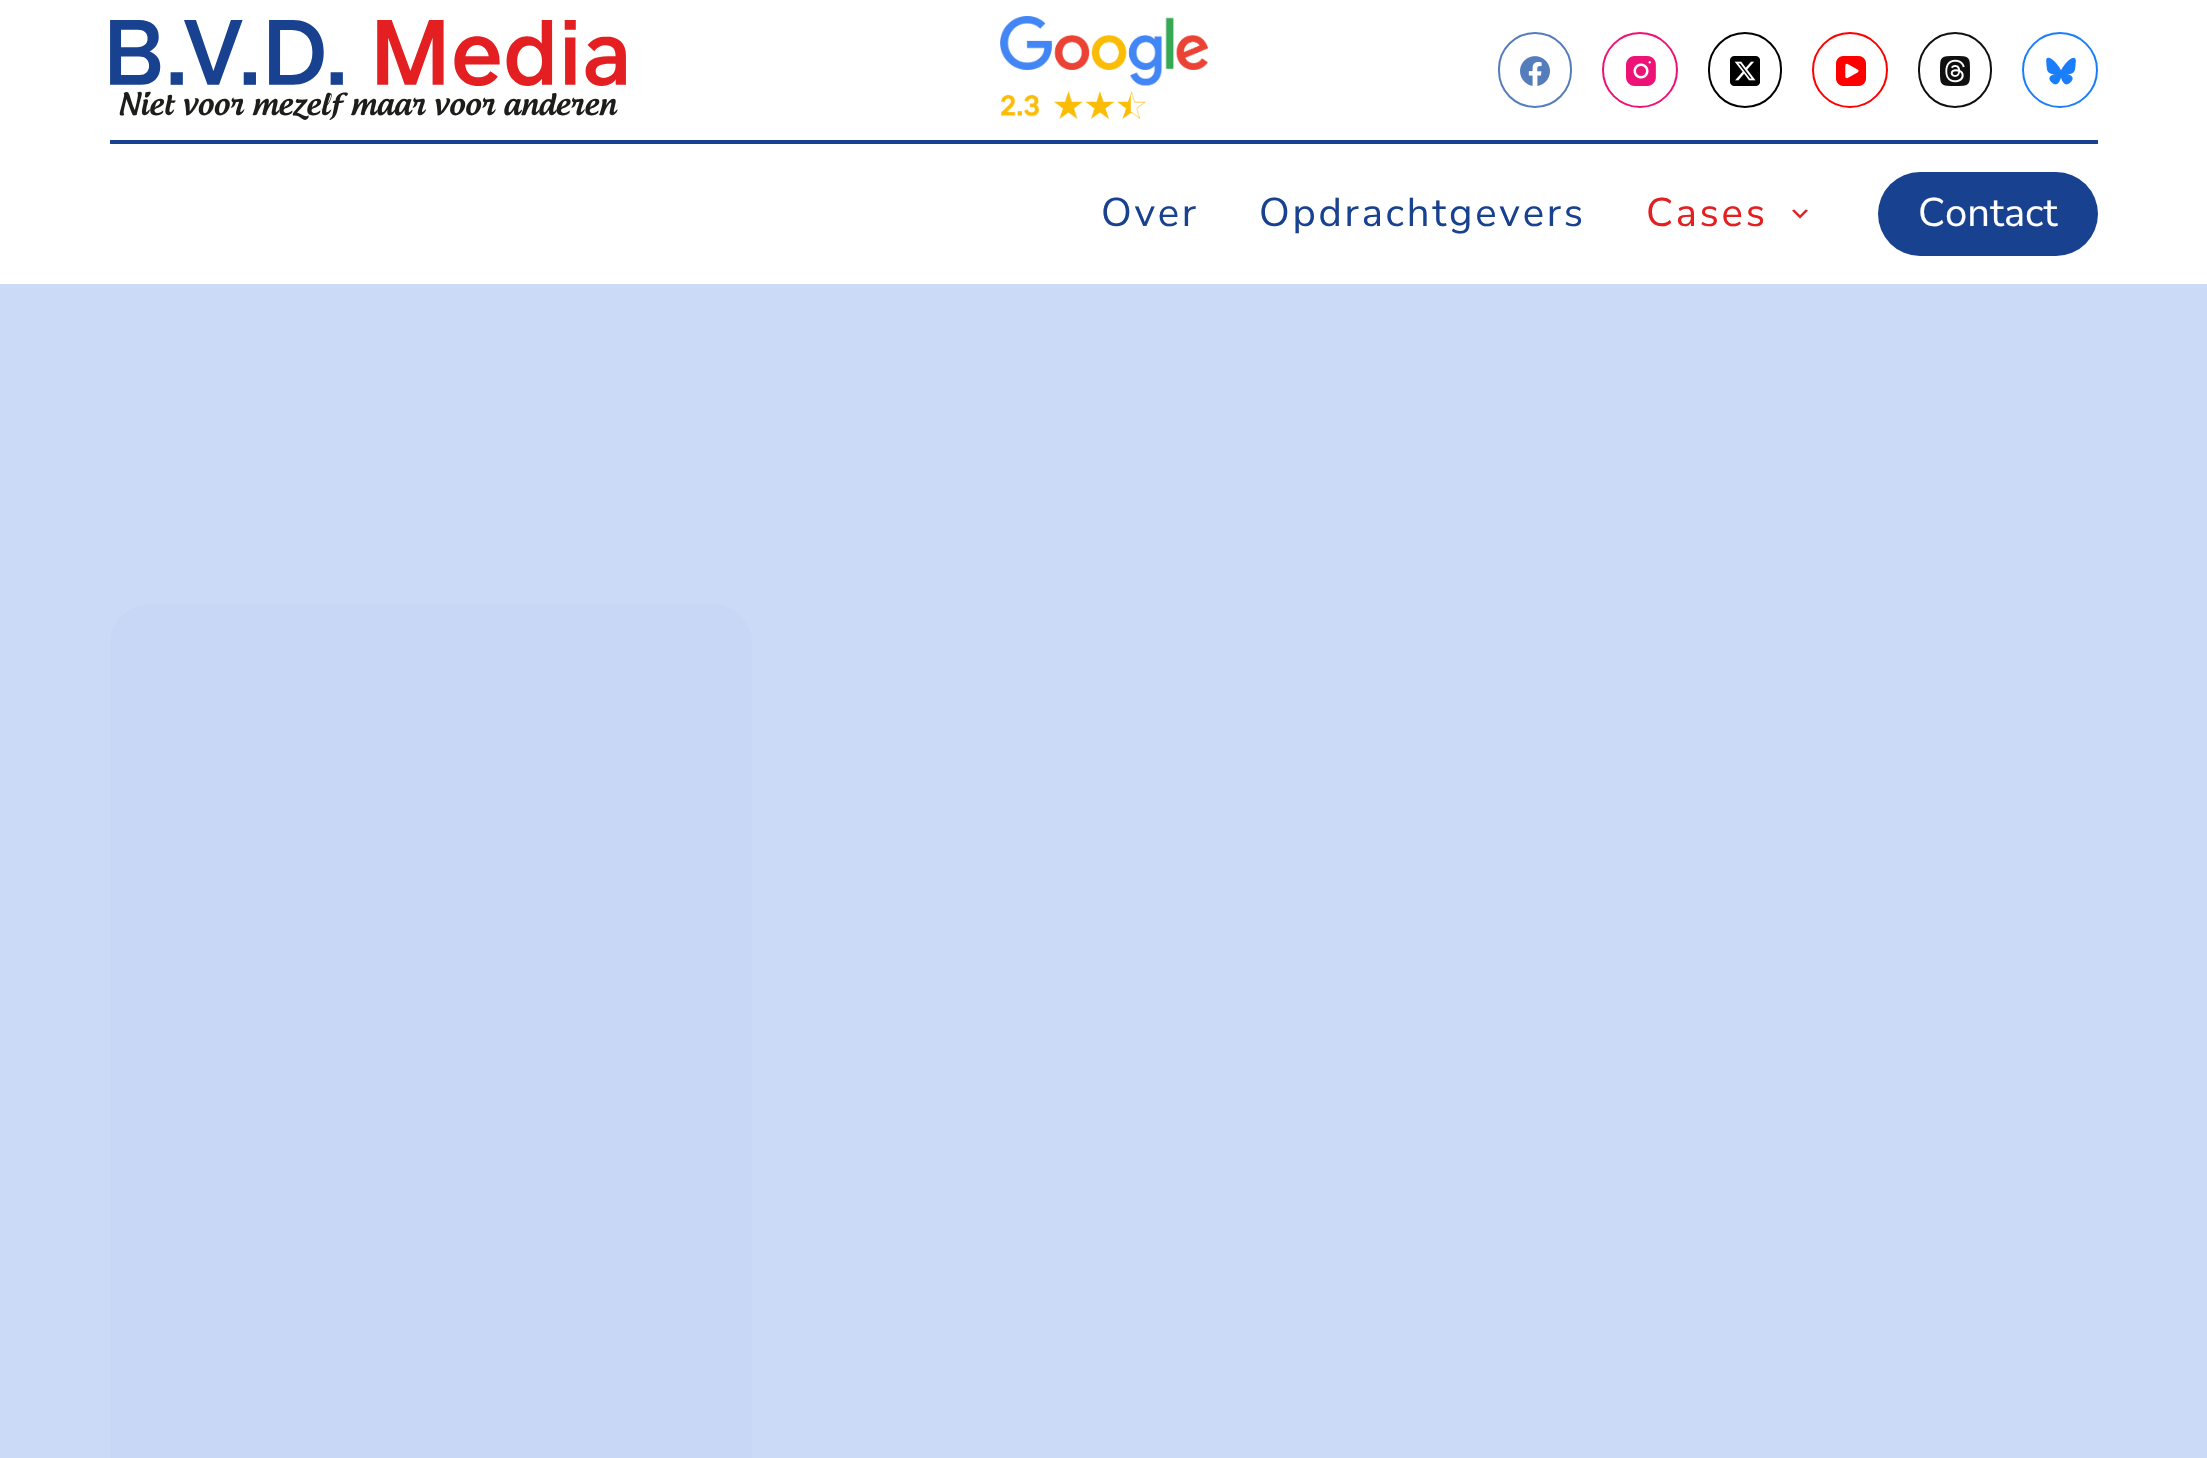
void draw(SkCanvas* canvas) {
	SkPaint fill;
	fill.setAntiAlias(true);
	auto makeFont = [&](const char* family, int weight, float size, bool italic = false) {
		SkFontStyle style(weight, SkFontStyle::kNormal_Width,
			italic ? SkFontStyle::kItalic_Slant : SkFontStyle::kUpright_Slant);
		SkFont result(fontMgr->matchFamilyStyle(family, style), size);
		result.setSubpixel(true);
		return result;
	};
	auto text = [&](const char* s, float x, float y, const SkFont& font) {
		canvas->drawString(s, x, y, font, fill);
	};
	auto spacedText = [&](const char* s, float x, float y, const SkFont& font, const SkPaint& ink, float letter, float word) {
		std::vector<SkGlyphID> glyphs(font.countText(s, strlen(s), SkTextEncoding::kUTF8));
		std::vector<float> xs(glyphs.size());
		font.textToGlyphs(s, strlen(s), SkTextEncoding::kUTF8, glyphs);
		font.getXPos(glyphs, xs, x);
		float extra = 0;
		for (size_t i = 0; i < glyphs.size(); i++) {
			xs[i] += extra;
			extra += letter + word * (glyphs[i] == font.unicharToGlyph(' '));
		}
		canvas->drawTextBlob(SkTextBlob::MakeFromPosHGlyphs(glyphs, xs, y, font), 0, 0, ink);
	};
	auto box = [&](float l, float t, float r, float b) {
		canvas->drawRect(SkRect::MakeLTRB(l, t, r, b), fill);
	};
	auto roundBox = [&](float l, float t, float r, float b, float radius) {
		canvas->drawRoundRect(SkRect::MakeLTRB(l, t, r, b), radius, radius, fill);
	};
	auto picture = [&](const char* path, float l, float t, float r, float b) {
		auto image = SkImages::DeferredFromEncodedData(SkData::MakeFromFileName(path));
		canvas->drawImageRect(image, SkRect::MakeLTRB(l, t, r, b), SkSamplingOptions());
	};
	canvas->clear(0xFFCBDAF6);
	fill.setColor(0xFFFFFFFF);
	box(0, 0, 2207, 284);
	picture("image0.png", 110, 20, 626, 120);
	picture("image1.png", 1000, 16, 1208, 120);
	fill.setStyle(SkPaint::kStroke_Style);
	fill.setStrokeWidth(2);
	fill.setColor(0xFF557DBC);
	canvas->drawRoundRect(SkRect::MakeLTRB(1499, 33, 1571, 107), 36, 36, fill);
	picture("image2.png", 1520, 56, 1550, 86);
	fill.setColor(0xFFED1376);
	canvas->drawCircle(1640, 70, 37, fill);
	picture("image3.png", 1626, 56, 1656, 86);
	fill.setColor(0xFF000000);
	canvas->drawRoundRect(SkRect::MakeLTRB(1709, 33, 1781, 107), 36, 36, fill);
	picture("image4.png", 1730, 56, 1760, 86);
	fill.setColor(0xFFFF0000);
	canvas->drawCircle(1850, 70, 37, fill);
	picture("image5.png", 1836, 56, 1866, 86);
	fill.setColor(0xFF101010);
	canvas->drawRoundRect(SkRect::MakeLTRB(1919, 33, 1991, 107), 36, 36, fill);
	picture("image6.png", 1940, 56, 1970, 86);
	fill.setColor(0xFF1A7EFB);
	canvas->drawCircle(2060, 70, 37, fill);
	picture("image7.png", 2046, 57, 2076, 85);
	fill.setStyle(SkPaint::kFill_Style);
	fill.setColor(0xFF184190);
	box(110, 140, 2098, 144);
	picture("image8.png", 1792, 209, 1808, 219);
	roundBox(1878, 172, 2098, 256, 42);
	fill.setColor(0xFFC8D7F6);
	roundBox(110, 604, 752, 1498, 40);
	auto font1 = makeFont("Nunito Sans", 400, 40);
	fill.setColor(0xFF184190);
	spacedText("Over", 1101, 226, font1, fill, 2.75f, 0);
	spacedText("Opdrachtgevers", 1259, 226, font1, fill, 2.75f, 0);
	fill.setColor(0xFFE41F21);
	spacedText("Cases", 1646, 226, font1, fill, 2.75f, 0);
	fill.setColor(0xFFFFFFFF);
	text("Contact", 1918, 226, font1);
}
